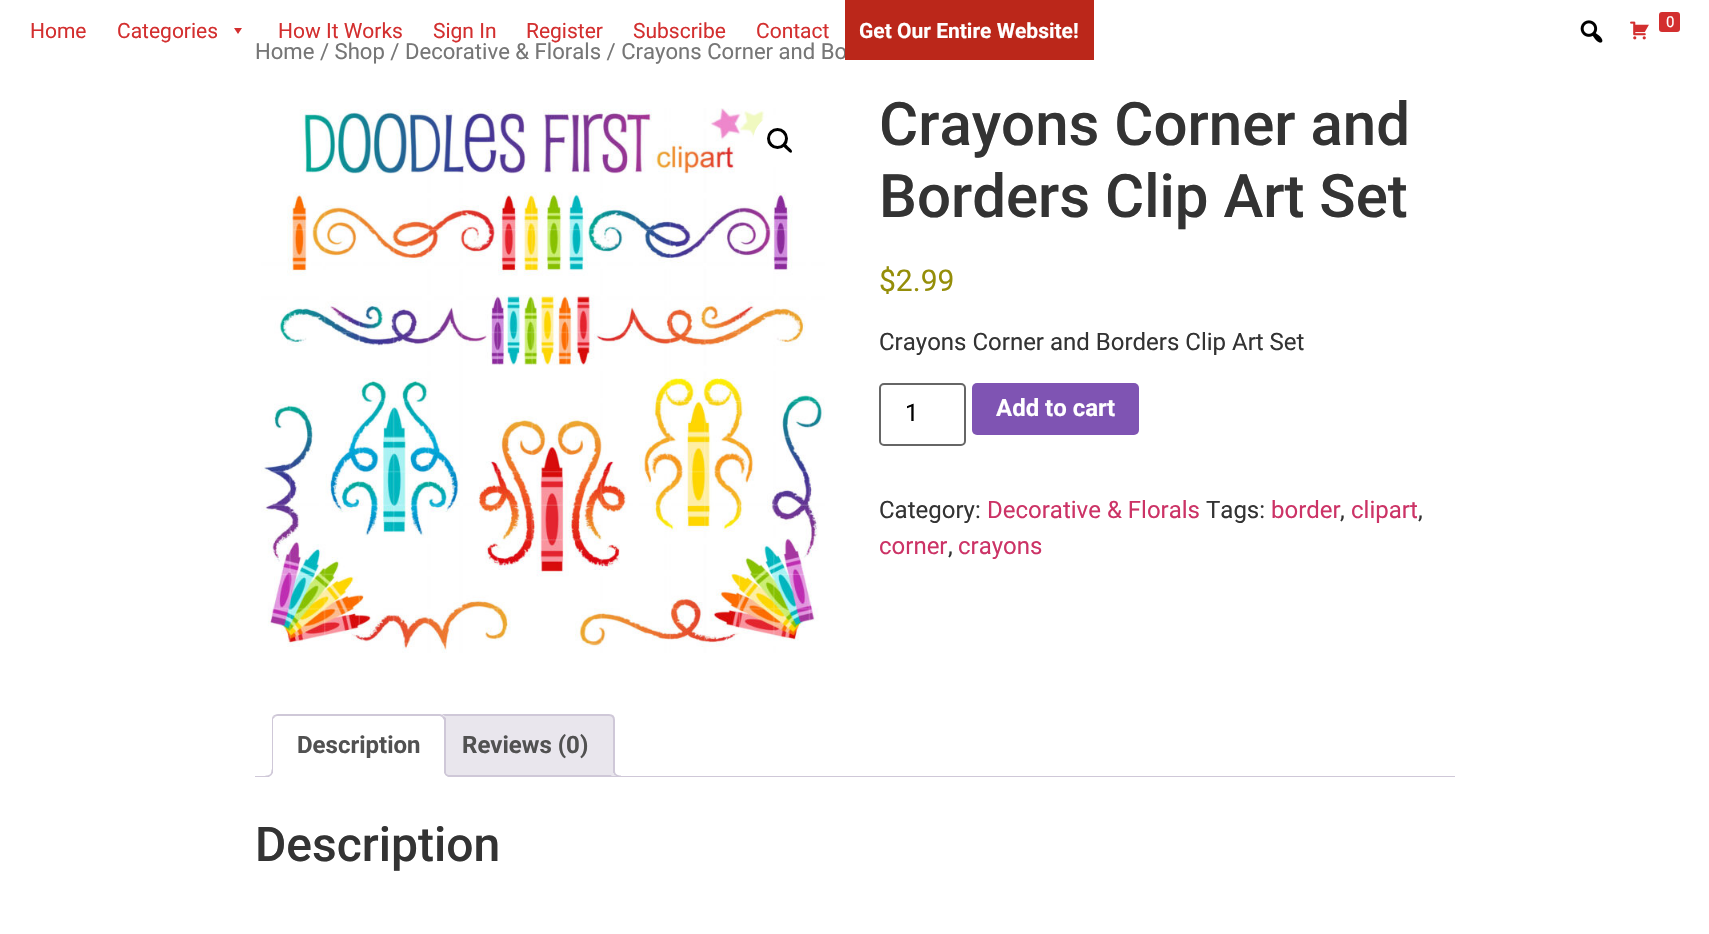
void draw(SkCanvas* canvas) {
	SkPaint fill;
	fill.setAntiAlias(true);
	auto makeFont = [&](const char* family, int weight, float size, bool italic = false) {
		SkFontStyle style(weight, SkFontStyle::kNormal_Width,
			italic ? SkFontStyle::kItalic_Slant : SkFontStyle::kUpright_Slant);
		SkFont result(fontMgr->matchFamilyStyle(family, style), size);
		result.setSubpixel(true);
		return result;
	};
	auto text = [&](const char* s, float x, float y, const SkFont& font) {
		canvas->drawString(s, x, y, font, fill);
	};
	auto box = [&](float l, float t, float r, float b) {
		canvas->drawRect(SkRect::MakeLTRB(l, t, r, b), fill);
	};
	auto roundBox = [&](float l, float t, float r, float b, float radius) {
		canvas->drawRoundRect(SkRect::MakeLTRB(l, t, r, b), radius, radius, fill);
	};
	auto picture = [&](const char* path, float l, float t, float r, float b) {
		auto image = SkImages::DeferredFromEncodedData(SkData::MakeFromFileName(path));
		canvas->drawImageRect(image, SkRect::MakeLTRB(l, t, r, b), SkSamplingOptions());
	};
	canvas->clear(0xFFFFFFFF);
	fill.setColor(0xFFD32F2F);
	canvas->drawPath(SkPathBuilder().moveTo(242, 28).lineTo(238, 34).lineTo(234, 28).close().detach(), fill);
	picture("image0.png", 1580, 20, 1603, 43);
	picture("image1.png", 1630, 21, 1649, 40);
	roundBox(1659, 12, 1680, 32, 3);
	picture("image2.png", 261, 108, 825, 653);
	fill.setColor(0xFFFFFFFF);
	canvas->drawCircle(780, 141, 27, fill);
	fill.setStyle(SkPaint::kStroke_Style);
	fill.setStrokeWidth(3);
	fill.setColor(0xFF000000);
	canvas->drawCircle(777.5f, 138.5f, 9, fill);
	fill.setStyle(SkPaint::kFill_Style);
	canvas->drawPath(SkPathBuilder().moveTo(783.5f, 144).cubicTo(785, 142, 787.5f, 146, 788.5f, 147).cubicTo(789.5f, 148, 793.5f, 150.5f, 791.5f, 152.5f).cubicTo(790, 154, 787.5f, 150, 786.5f, 149.5f).cubicTo(785.5f, 148.5f, 781.5f, 145.5f, 783.5f, 144).close().detach(), fill);
	fill.setStyle(SkPaint::kStroke_Style);
	fill.setStrokeWidth(2);
	fill.setColor(0xFF666666);
	canvas->drawRoundRect(SkRect::MakeLTRB(880, 384, 965, 445), 4, 4, fill);
	fill.setStyle(SkPaint::kFill_Style);
	fill.setColor(0xFF7F54B3);
	roundBox(972, 383, 1139, 435, 5);
	fill.setColor(0xFFE9E6ED);
	canvas->drawPath(SkPathBuilder().moveTo(443, 715).lineTo(609, 715).cubicTo(612, 715, 614, 717, 614, 720).lineTo(614, 776).lineTo(438, 776).lineTo(438, 720).cubicTo(438, 717, 440, 715, 443, 715).close().detach(), fill);
	fill.setStyle(SkPaint::kStroke_Style);
	fill.setColor(0xFFCFC8D8);
	canvas->drawPath(SkPathBuilder().moveTo(443, 715).lineTo(609, 715).cubicTo(612, 715, 614, 717, 614, 720).lineTo(614, 776).lineTo(438, 776).lineTo(438, 720).cubicTo(438, 717, 440, 715, 443, 715).close().detach(), fill);
	canvas->save();
	canvas->clipRect(SkRect::MakeLTRB(255, 714, 1455, 777));
	fill.setStyle(SkPaint::kFill_Style);
	fill.setColor(0xFFE9E6ED);
	canvas->drawPath(SkPathBuilder().moveTo(611, 773).cubicTo(611, 777.5f, 613.5f, 780, 618, 780).lineTo(618, 777).cubicTo(616, 776.5f, 614.5f, 775, 614, 773).close().detach(), fill);
	canvas->restore();
	fill.setColor(0xFFCFC8D8);
	canvas->drawPath(SkPathBuilder(SkPathFillType::kEvenOdd).moveTo(613.5f, 769.5f).lineTo(621, 769.5f).lineTo(621, 777).cubicTo(617, 777, 613.5f, 775.5f, 613.5f, 771).close().moveTo(615, 769.5f).lineTo(621, 769.5f).lineTo(621, 775.5f).cubicTo(618, 775.5f, 615, 774.5f, 615, 771).close().detach(), fill);
	box(255, 776, 1455, 777);
	fill.setColor(0xFFFFFFFF);
	canvas->drawPath(SkPathBuilder().moveTo(278, 714).lineTo(440, 714).cubicTo(443.5f, 714, 446, 716.5f, 446, 720).lineTo(446, 777).lineTo(272, 777).lineTo(272, 720).cubicTo(272, 716.5f, 274.5f, 714, 278, 714).close().detach(), fill);
	fill.setColor(0xFFCFC8D8);
	canvas->drawPath(SkPathBuilder().moveTo(278, 714).cubicTo(276, 714, 274, 715, 273, 716).lineTo(275, 717).cubicTo(275, 716, 277, 716, 278, 716).lineTo(440, 716).lineTo(442, 717).lineTo(444, 716).cubicTo(443, 715, 441, 714, 440, 714).close().detach(), fill);
	canvas->drawPath(SkPathBuilder().moveTo(446, 718).lineTo(446, 777).lineTo(444, 776).lineTo(444, 720).lineTo(442, 717).lineTo(444, 716).close().detach(), fill);
	fill.setColor(0xFFFFFFFF);
	canvas->drawPath(SkPathBuilder().moveTo(446, 777).lineTo(444, 776).lineTo(273, 776).lineTo(272, 777).close().detach(), fill);
	fill.setColor(0xFFCFC8D8);
	canvas->drawPath(SkPathBuilder().moveTo(273, 716).cubicTo(272, 717, 272, 719, 272, 720).lineTo(272, 776).lineTo(273, 776).lineTo(273, 719).lineTo(275, 717).close().detach(), fill);
	canvas->save();
	canvas->clipRect(SkRect::MakeLTRB(255, 714, 1455, 777));
	fill.setColor(0xFFFFFFFF);
	canvas->drawPath(SkPathBuilder().moveTo(269, 776.5f).lineTo(269, 780).cubicTo(273.5f, 780, 276, 777.5f, 276, 773).lineTo(272.5f, 773).cubicTo(272, 774.5f, 270.5f, 776, 269, 776.5f).close().detach(), fill);
	canvas->restore();
	fill.setColor(0xFFCFC8D8);
	canvas->drawPath(SkPathBuilder(SkPathFillType::kEvenOdd).moveTo(265.5f, 769.5f).lineTo(273, 769.5f).cubicTo(273, 775, 271, 777, 265.5f, 777).close().moveTo(265.5f, 769.5f).lineTo(271.5f, 769.5f).cubicTo(271.5f, 774, 270, 775.5f, 265.5f, 775.5f).close().detach(), fill);
	canvas->save();
	canvas->clipRect(SkRect::MakeLTRB(255, 714, 1455, 777));
	fill.setColor(0xFFFFFFFF);
	canvas->drawPath(SkPathBuilder().moveTo(441, 773).cubicTo(441, 778.5f, 444, 780, 449, 780).lineTo(449, 777).cubicTo(447, 776.5f, 445, 775, 444.5f, 773).close().detach(), fill);
	canvas->restore();
	fill.setColor(0xFFCFC8D8);
	canvas->drawPath(SkPathBuilder(SkPathFillType::kEvenOdd).moveTo(444, 769.5f).lineTo(451.5f, 769.5f).lineTo(451.5f, 777).cubicTo(447.5f, 777, 444, 775.5f, 444, 771).close().moveTo(445.5f, 769.5f).lineTo(451.5f, 769.5f).lineTo(451.5f, 775.5f).cubicTo(448.5f, 775.5f, 445.5f, 774.5f, 445.5f, 771).close().detach(), fill);
	auto font1 = makeFont("Roboto", 400, 21);
	fill.setColor(0xFFD32F2F);
	text("Home", 30, 38, font1);
	text("Categories", 117, 38, font1);
	text("How It Works", 278, 38, font1);
	text("Sign In", 433, 38, font1);
	text("Register", 526, 38, font1);
	text("Subscribe", 633, 38, font1);
	text("Contact", 756, 38, font1);
	auto font2 = makeFont("Roboto", 400, 15);
	fill.setColor(0xFFFFFFFF);
	text("0", 1666, 27, font2);
	auto font3 = makeFont("Roboto", 400, 22.1f);
	fill.setColor(0xFF767676);
	text("Home / Shop / Decorative & Florals / Crayons Corner and Bo", 255, 59, font3);
	fill.setColor(0xFFBB271A);
	box(845, 0, 1094, 60);
	auto font4 = makeFont("Roboto", 700, 21);
	fill.setColor(0xFFFFFFFF);
	text("Get Our Entire Website!", 859, 38, font4);
	auto font5 = makeFont("Roboto", 500, 60);
	fill.setColor(0xFF333333);
	text("Crayons Corner and", 879, 145, font5);
	text("Borders Clip Art Set", 879, 217, font5);
	auto font6 = makeFont("Roboto", 400, 30);
	fill.setColor(0xFF958E09);
	text("$2.99", 879, 291, font6);
	auto font7 = makeFont("Roboto", 400, 24);
	fill.setColor(0xFF333333);
	text("Crayons Corner and Borders Clip Art Set", 879, 350, font7);
	fill.setColor(0xFF000000);
	text("1", 905, 421, font7);
	auto font8 = makeFont("Roboto", 700, 24);
	fill.setColor(0xFFFFFFFF);
	text("Add to cart", 996, 416, font8);
	fill.setColor(0xFF333333);
	text("Category:", 879, 518, font7);
	fill.setColor(0xFFCC3366);
	text("Decorative & Florals", 987, 518, font7);
	fill.setColor(0xFF333333);
	text("Tags:", 1206, 518, font7);
	fill.setColor(0xFFCC3366);
	text("border", 1271, 518, font7);
	fill.setColor(0xFF333333);
	text(",", 1340, 518, font7);
	fill.setColor(0xFFCC3366);
	text("clipart", 1351, 518, font7);
	fill.setColor(0xFF333333);
	text(",", 1418, 518, font7);
	fill.setColor(0xFFCC3366);
	text("corner", 879, 554, font7);
	fill.setColor(0xFF333333);
	text(",", 948, 554, font7);
	fill.setColor(0xFFCC3366);
	text("crayons", 958, 554, font7);
	fill.setColor(0xFF515151);
	text("Description", 297, 753, font8);
	text("Reviews (0)", 462, 753, font8);
	auto font9 = makeFont("Roboto", 500, 48);
	fill.setColor(0xFF333333);
	text("Description", 255, 861, font9);
}
